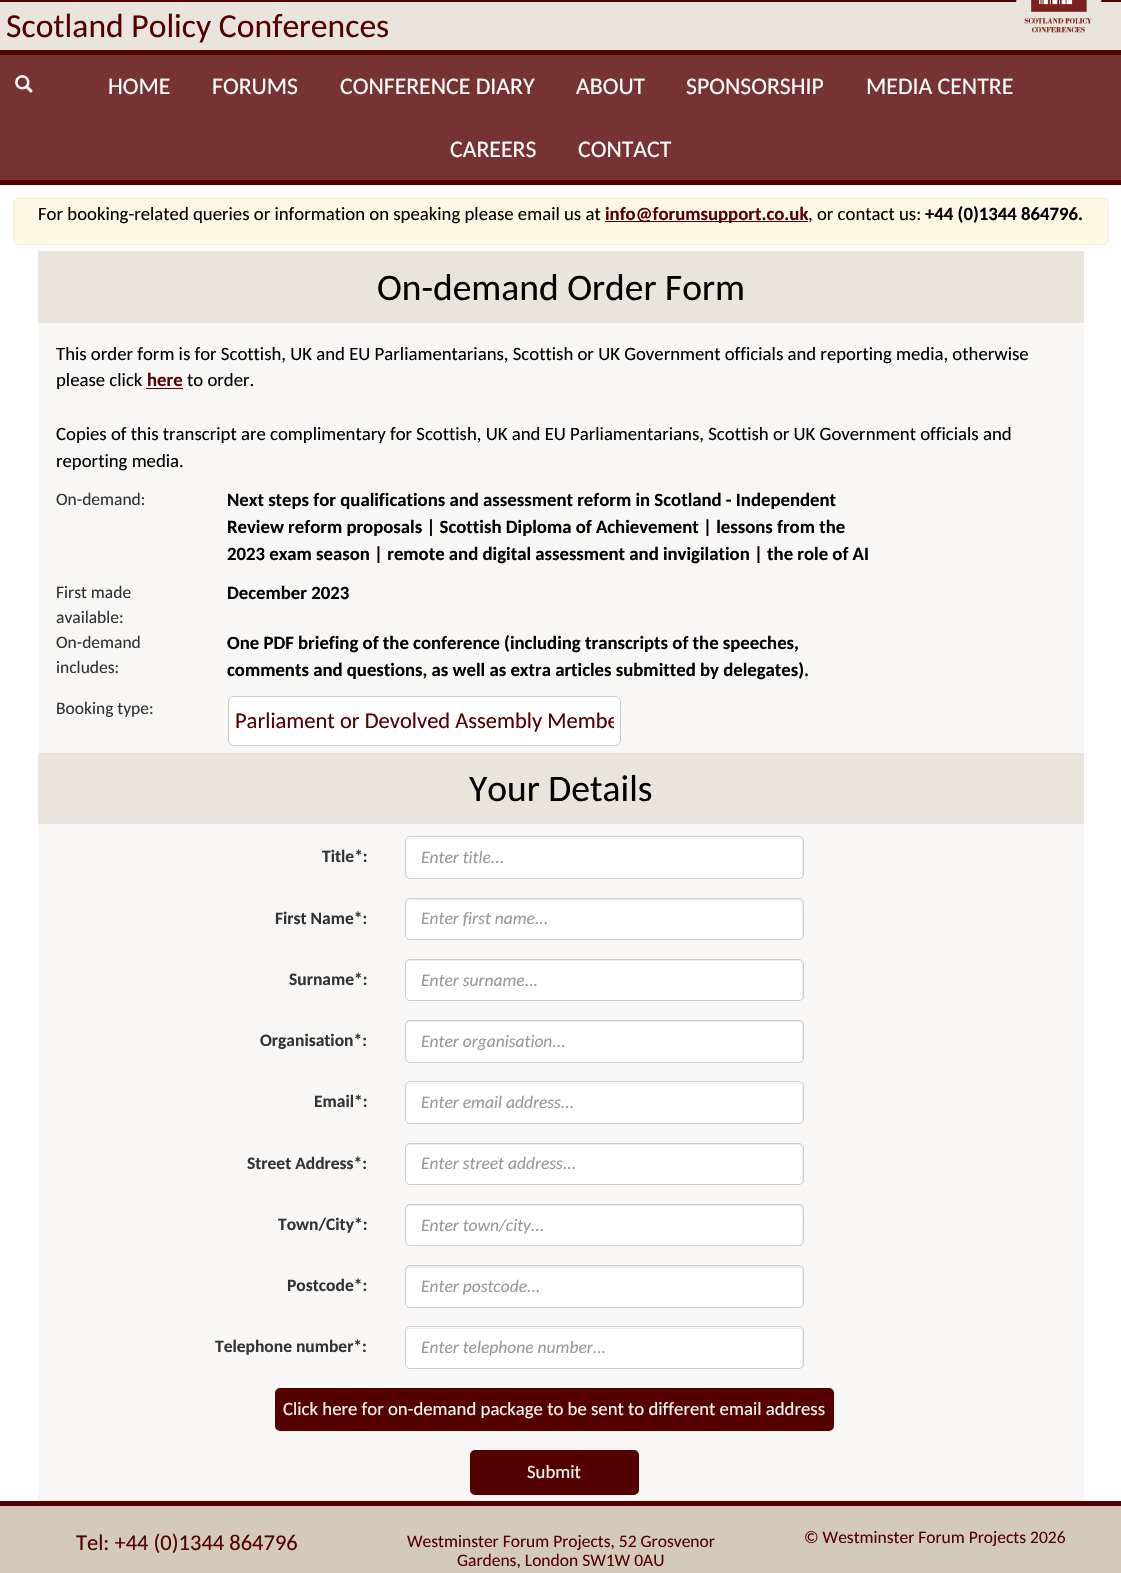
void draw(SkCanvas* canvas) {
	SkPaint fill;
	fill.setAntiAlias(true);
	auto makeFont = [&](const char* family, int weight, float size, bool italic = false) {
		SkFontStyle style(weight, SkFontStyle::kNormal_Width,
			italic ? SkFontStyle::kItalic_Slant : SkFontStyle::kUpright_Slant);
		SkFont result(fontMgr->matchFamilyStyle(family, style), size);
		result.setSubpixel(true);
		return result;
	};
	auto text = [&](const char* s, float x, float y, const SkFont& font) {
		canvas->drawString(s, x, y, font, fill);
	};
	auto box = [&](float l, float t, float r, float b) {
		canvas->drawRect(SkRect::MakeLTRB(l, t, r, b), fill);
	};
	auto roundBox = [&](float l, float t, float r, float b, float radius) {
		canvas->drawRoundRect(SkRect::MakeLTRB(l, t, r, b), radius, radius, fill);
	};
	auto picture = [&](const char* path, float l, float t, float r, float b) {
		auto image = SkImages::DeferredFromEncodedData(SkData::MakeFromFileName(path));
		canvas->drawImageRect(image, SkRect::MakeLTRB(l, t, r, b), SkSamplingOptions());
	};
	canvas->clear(0xFFFFFFFF);
	fill.setColor(0xFFE9E4DD);
	box(0, 2, 1121, 50);
	fill.setColor(0xFF550000);
	box(0, 0, 1121, 2);
	picture("image0.png", 1015, 0, 1102, 33);
	fill.setColor(0xFF773333);
	box(0, 55, 1121, 180);
	fill.setColor(0xFF550000);
	box(0, 50, 1121, 55);
	box(0, 180, 1121, 185);
	picture("image1.png", 15, 75, 33, 93);
	fill.setColor(0xFFFCF8E3);
	canvas->drawRoundRect(SkRect::MakeLTRB(13.5f, 198.5f, 1108.5f, 244.5f), 4.5f, 4.5f, fill);
	fill.setStyle(SkPaint::kStroke_Style);
	fill.setStrokeWidth(1);
	fill.setColor(0xFFFAEBCC);
	canvas->drawRoundRect(SkRect::MakeLTRB(13.5f, 198.5f, 1108.5f, 244.5f), 4.5f, 4.5f, fill);
	fill.setStyle(SkPaint::kFill_Style);
	fill.setColor(0xFF550000);
	box(605, 221, 808, 222);
	fill.setColor(0xFFE9E4DD);
	box(38, 251, 1084, 323);
	fill.setColor(0xFFF8F7F5);
	box(38, 323, 1084, 753);
	fill.setColor(0xFF550000);
	box(146, 388, 183, 389);
	fill.setColor(0xFFFFFFFF);
	canvas->drawRoundRect(SkRect::MakeLTRB(228.5f, 696.5f, 620.5f, 745.5f), 5.5f, 5.5f, fill);
	fill.setStyle(SkPaint::kStroke_Style);
	fill.setColor(0xFFC9C9C9);
	canvas->drawRoundRect(SkRect::MakeLTRB(228.5f, 696.5f, 620.5f, 745.5f), 5.5f, 5.5f, fill);
	fill.setStyle(SkPaint::kFill_Style);
	fill.setColor(0xFFE9E4DD);
	box(38, 753, 1084, 824);
	fill.setColor(0xFFF8F7F5);
	box(38, 824, 1084, 1501);
	fill.setColor(0xFFFFFFFF);
	roundBox(405, 836, 804, 879, 5);
	fill.setColor(0xFFECECEC);
	canvas->drawPath(SkPathBuilder().moveTo(410, 839).lineTo(799, 839).cubicTo(801, 839, 802, 840, 802, 842).lineTo(802, 877).cubicTo(802, 876, 803, 875, 803, 874).lineTo(803, 842).cubicTo(803, 840, 801, 838, 799, 838).lineTo(410, 838).cubicTo(408, 838, 406, 840, 406, 842).cubicTo(406, 840, 408, 839, 410, 839).close().detach(), fill);
	fill.setStyle(SkPaint::kStroke_Style);
	fill.setColor(0xFFCCCCCC);
	canvas->drawRoundRect(SkRect::MakeLTRB(405.5f, 836.5f, 803.5f, 878.5f), 4.5f, 4.5f, fill);
	fill.setStyle(SkPaint::kFill_Style);
	fill.setColor(0xFFFFFFFF);
	roundBox(405, 898, 804, 940, 5);
	fill.setColor(0xFFECECEC);
	canvas->drawPath(SkPathBuilder().moveTo(410, 900).lineTo(799, 900).cubicTo(804, 900, 802, 913, 802, 915).lineTo(802, 938).cubicTo(802, 937, 803, 936, 803, 935).lineTo(803, 903).cubicTo(803, 901, 801, 899, 799, 899).lineTo(410, 899).cubicTo(408, 899, 406, 901, 406, 903).lineTo(406, 904).cubicTo(406, 902, 408, 900, 410, 900).close().detach(), fill);
	fill.setStyle(SkPaint::kStroke_Style);
	fill.setColor(0xFFCCCCCC);
	canvas->drawRoundRect(SkRect::MakeLTRB(405.5f, 898.5f, 803.5f, 939.5f), 4.5f, 4.5f, fill);
	fill.setStyle(SkPaint::kFill_Style);
	fill.setColor(0xFFFFFFFF);
	roundBox(405, 959, 804, 1001, 5);
	fill.setColor(0xFFECECEC);
	canvas->drawPath(SkPathBuilder().moveTo(410, 961).lineTo(799, 961).cubicTo(801, 961, 802, 963, 802, 965).lineTo(802, 999).cubicTo(803, 998, 803, 997, 803, 996).lineTo(803, 964).cubicTo(803, 962, 801, 960, 799, 960).lineTo(410, 960).cubicTo(408, 960, 406, 962, 406, 964).lineTo(406, 965).cubicTo(406, 963, 408, 961, 410, 961).close().detach(), fill);
	fill.setStyle(SkPaint::kStroke_Style);
	fill.setColor(0xFFCCCCCC);
	canvas->drawRoundRect(SkRect::MakeLTRB(405.5f, 959.5f, 803.5f, 1000.5f), 4.5f, 4.5f, fill);
	fill.setStyle(SkPaint::kFill_Style);
	fill.setColor(0xFFFFFFFF);
	roundBox(405, 1020, 804, 1063, 5);
	fill.setColor(0xFFECECEC);
	canvas->drawPath(SkPathBuilder().moveTo(410, 1022).lineTo(799, 1022).cubicTo(801, 1022, 802, 1024, 802, 1026).lineTo(802, 1060).cubicTo(803, 1059, 803, 1058, 803, 1057).lineTo(803, 1025).cubicTo(803, 1023, 801, 1021, 799, 1021).lineTo(410, 1021).cubicTo(408, 1021, 406, 1023, 406, 1025).lineTo(406, 1026).cubicTo(406, 1024, 408, 1022, 410, 1022).close().detach(), fill);
	fill.setStyle(SkPaint::kStroke_Style);
	fill.setColor(0xFFCCCCCC);
	canvas->drawRoundRect(SkRect::MakeLTRB(405.5f, 1020.5f, 803.5f, 1062.5f), 4.5f, 4.5f, fill);
	fill.setStyle(SkPaint::kFill_Style);
	fill.setColor(0xFFFFFFFF);
	roundBox(405, 1081, 804, 1124, 5);
	fill.setColor(0xFFECECEC);
	canvas->drawPath(SkPathBuilder().moveTo(410, 1084).lineTo(799, 1084).cubicTo(801, 1084, 802, 1085, 802, 1088).lineTo(802, 1122).cubicTo(802, 1121, 803, 1120, 803, 1119).lineTo(803, 1087).cubicTo(803, 1085, 801, 1083, 799, 1083).lineTo(410, 1083).cubicTo(408, 1083, 406, 1085, 406, 1087).lineTo(406, 1088).cubicTo(406, 1085, 408, 1084, 410, 1084).close().detach(), fill);
	fill.setStyle(SkPaint::kStroke_Style);
	fill.setColor(0xFFCCCCCC);
	canvas->drawRoundRect(SkRect::MakeLTRB(405.5f, 1081.5f, 803.5f, 1123.5f), 4.5f, 4.5f, fill);
	fill.setStyle(SkPaint::kFill_Style);
	fill.setColor(0xFFFFFFFF);
	roundBox(405, 1143, 804, 1185, 5);
	fill.setColor(0xFFECECEC);
	canvas->drawPath(SkPathBuilder().moveTo(410, 1145).lineTo(799, 1145).cubicTo(804, 1145, 802, 1158, 802, 1160).lineTo(802, 1183).cubicTo(802, 1182, 803, 1181, 803, 1180).lineTo(803, 1148).cubicTo(803, 1146, 801, 1144, 799, 1144).lineTo(410, 1144).cubicTo(408, 1144, 406, 1146, 406, 1148).lineTo(406, 1149).cubicTo(406, 1147, 408, 1145, 410, 1145).close().detach(), fill);
	fill.setStyle(SkPaint::kStroke_Style);
	fill.setColor(0xFFCCCCCC);
	canvas->drawRoundRect(SkRect::MakeLTRB(405.5f, 1143.5f, 803.5f, 1184.5f), 4.5f, 4.5f, fill);
	fill.setStyle(SkPaint::kFill_Style);
	fill.setColor(0xFFFFFFFF);
	roundBox(405, 1204, 804, 1246, 5);
	fill.setColor(0xFFECECEC);
	canvas->drawPath(SkPathBuilder().moveTo(410, 1206).lineTo(799, 1206).cubicTo(804, 1206, 802, 1219, 802, 1221).lineTo(802, 1244).cubicTo(803, 1243, 803, 1242, 803, 1241).lineTo(803, 1209).cubicTo(803, 1207, 801, 1205, 799, 1205).lineTo(410, 1205).cubicTo(408, 1205, 406, 1207, 406, 1209).lineTo(406, 1210).cubicTo(406, 1208, 408, 1206, 410, 1206).close().detach(), fill);
	fill.setStyle(SkPaint::kStroke_Style);
	fill.setColor(0xFFCCCCCC);
	canvas->drawRoundRect(SkRect::MakeLTRB(405.5f, 1204.5f, 803.5f, 1245.5f), 4.5f, 4.5f, fill);
	fill.setStyle(SkPaint::kFill_Style);
	fill.setColor(0xFFFFFFFF);
	roundBox(405, 1265, 804, 1308, 5);
	fill.setColor(0xFFECECEC);
	canvas->drawPath(SkPathBuilder().moveTo(410, 1268).lineTo(799, 1268).cubicTo(801, 1268, 802, 1269, 802, 1271).lineTo(802, 1305).cubicTo(803, 1304, 803, 1303, 803, 1302).lineTo(803, 1270).cubicTo(803, 1268, 801, 1266, 799, 1266).lineTo(410, 1266).cubicTo(408, 1266, 406, 1268, 406, 1270).lineTo(406, 1271).cubicTo(406, 1269, 408, 1268, 410, 1268).close().detach(), fill);
	fill.setStyle(SkPaint::kStroke_Style);
	fill.setColor(0xFFCCCCCC);
	canvas->drawRoundRect(SkRect::MakeLTRB(405.5f, 1265.5f, 803.5f, 1307.5f), 4.5f, 4.5f, fill);
	fill.setStyle(SkPaint::kFill_Style);
	fill.setColor(0xFFFFFFFF);
	roundBox(405, 1326, 804, 1369, 5);
	fill.setColor(0xFFECECEC);
	canvas->drawPath(SkPathBuilder().moveTo(410, 1329).lineTo(799, 1329).cubicTo(801, 1329, 802, 1330, 802, 1332).lineTo(802, 1367).cubicTo(802, 1366, 803, 1365, 803, 1364).lineTo(803, 1332).cubicTo(803, 1330, 801, 1328, 799, 1328).lineTo(410, 1328).cubicTo(408, 1328, 406, 1330, 406, 1332).cubicTo(406, 1330, 408, 1329, 410, 1329).close().detach(), fill);
	fill.setStyle(SkPaint::kStroke_Style);
	fill.setColor(0xFFCCCCCC);
	canvas->drawRoundRect(SkRect::MakeLTRB(405.5f, 1326.5f, 803.5f, 1368.5f), 4.5f, 4.5f, fill);
	fill.setStyle(SkPaint::kFill_Style);
	fill.setColor(0xFF550000);
	canvas->drawRoundRect(SkRect::MakeLTRB(276.5f, 1389.5f, 832.5f, 1429.5f), 3.5f, 3.5f, fill);
	fill.setStyle(SkPaint::kStroke_Style);
	fill.setStrokeWidth(3);
	canvas->drawRoundRect(SkRect::MakeLTRB(276.5f, 1389.5f, 832.5f, 1429.5f), 3.5f, 3.5f, fill);
	fill.setStyle(SkPaint::kFill_Style);
	canvas->drawRoundRect(SkRect::MakeLTRB(471.5f, 1451.5f, 637.5f, 1493.5f), 3.5f, 3.5f, fill);
	fill.setStyle(SkPaint::kStroke_Style);
	canvas->drawRoundRect(SkRect::MakeLTRB(471.5f, 1451.5f, 637.5f, 1493.5f), 3.5f, 3.5f, fill);
	fill.setStyle(SkPaint::kFill_Style);
	fill.setColor(0xFFD3CABB);
	box(0, 1506, 1121, 1573);
	fill.setColor(0xFF550000);
	box(0, 1501, 1121, 1506);
	auto font1 = makeFont("Carlito", 400, 33.6f);
	text("Scotland Policy Conferences", 6, 37, font1);
	auto font2 = makeFont("Carlito", 400, 23.75f);
	fill.setColor(0xFFFFFFFF);
	text("HOME", 108, 94, font2);
	text("FORUMS", 212, 94, font2);
	text("CONFERENCE DIARY", 340, 94, font2);
	text("ABOUT", 576, 94, font2);
	text("SPONSORSHIP", 686, 94, font2);
	text("MEDIA CENTRE", 866, 94, font2);
	text("CAREERS", 450, 157, font2);
	text("CONTACT", 578, 157, font2);
	auto font3 = makeFont("Carlito", 400, 18.75f);
	fill.setColor(0xFF000000);
	text("For booking-related queries or information on speaking please email us at", 38, 220, font3);
	auto font4 = makeFont("Carlito", 700, 18.75f);
	fill.setColor(0xFF550000);
	text("info@forumsupport.co.uk", 605, 220, font4);
	fill.setColor(0xFF000000);
	text(", or contact us:", 808, 220, font3);
	text("+44 (0)1344 864796.", 925, 220, font4);
	auto font5 = makeFont("Carlito", 400, 37.5f);
	text("On-demand Order Form", 377, 300, font5);
	text("This order form is for Scottish, UK and EU Parliamentarians, Scottish or UK Government officials and reporting media, otherwise", 56, 360, font3);
	text("please click", 56, 386, font3);
	fill.setColor(0xFF550000);
	text("here", 147, 386, font4);
	fill.setColor(0xFF000000);
	text("to order.", 187, 386, font3);
	text("Copies of this transcript are complimentary for Scottish, UK and EU Parliamentarians, Scottish or UK Government officials and", 56, 440, font3);
	text("reporting media.", 56, 467, font3);
	auto font6 = makeFont("Carlito", 400, 17.5f);
	fill.setColor(0xFF333333);
	text("On-demand:", 56, 505, font6);
	fill.setColor(0xFF000000);
	text("Next steps for qualifications and assessment reform in Scotland - Independent", 227, 506, font4);
	text("Review reform proposals | Scottish Diploma of Achievement | lessons from the", 227, 533, font4);
	text("2023 exam season | remote and digital assessment and invigilation | the role of AI", 227, 560, font4);
	fill.setColor(0xFF333333);
	text("First made", 56, 598, font6);
	text("available:", 56, 623, font6);
	fill.setColor(0xFF000000);
	text("December 2023", 227, 599, font4);
	fill.setColor(0xFF333333);
	text("On-demand", 56, 648, font6);
	text("includes:", 56, 673, font6);
	fill.setColor(0xFF000000);
	text("One PDF briefing of the conference (including transcripts of the speeches,", 227, 649, font4);
	text("comments and questions, as well as extra articles submitted by delegates).", 227, 676, font4);
	fill.setColor(0xFF333333);
	text("Booking type:", 56, 714, font6);
	canvas->save();
	canvas->clipRect(SkRect::MakeLTRB(235, 705, 614, 738));
	auto font7 = makeFont("Carlito", 400, 22.5f);
	fill.setColor(0xFF550000);
	text("Parliament or Devolved Assembly Membe", 235, 728, font7);
	canvas->restore();
	fill.setColor(0xFF000000);
	text("Your Details", 469, 801, font5);
	auto font8 = makeFont("Carlito", 700, 17.5f);
	fill.setColor(0xFF333333);
	text("Title*:", 322, 862, font8);
	auto font9 = makeFont("Carlito", 400, 17.5f, true);
	fill.setColor(0xFF999999);
	text("Enter title...", 421, 863, font9);
	fill.setColor(0xFF333333);
	text("First Name*:", 275, 924, font8);
	fill.setColor(0xFF999999);
	text("Enter first name...", 421, 924, font9);
	fill.setColor(0xFF333333);
	text("Surname*:", 289, 985, font8);
	fill.setColor(0xFF999999);
	text("Enter surname...", 421, 986, font9);
	fill.setColor(0xFF333333);
	text("Organisation*:", 260, 1046, font8);
	fill.setColor(0xFF999999);
	text("Enter organisation...", 421, 1047, font9);
	fill.setColor(0xFF333333);
	text("Email*:", 314, 1107, font8);
	fill.setColor(0xFF999999);
	text("Enter email address...", 421, 1108, font9);
	fill.setColor(0xFF333333);
	text("Street Address*:", 247, 1169, font8);
	fill.setColor(0xFF999999);
	text("Enter street address...", 421, 1169, font9);
	fill.setColor(0xFF333333);
	text("Town/City*:", 278, 1230, font8);
	fill.setColor(0xFF999999);
	text("Enter town/city...", 421, 1231, font9);
	fill.setColor(0xFF333333);
	text("Postcode*:", 287, 1291, font8);
	fill.setColor(0xFF999999);
	text("Enter postcode...", 421, 1292, font9);
	fill.setColor(0xFF333333);
	text("Telephone number*:", 215, 1352, font8);
	fill.setColor(0xFF999999);
	text("Enter telephone number...", 421, 1353, font9);
	fill.setColor(0xFFF8F7F5);
	text("Click here for on-demand package to be sent to different email address", 283, 1415, font3);
	text("Submit", 527, 1478, font3);
	fill.setColor(0xFF550000);
	text("Tel: +44 (0)1344 864796", 76, 1550, font7);
	text("Westminster Forum Projects, 52 Grosvenor", 407, 1547, font6);
	text("Gardens, London SW1W 0AU", 457, 1566, font6);
	text("© Westminster Forum Projects 2026", 804, 1543, font6);
}
